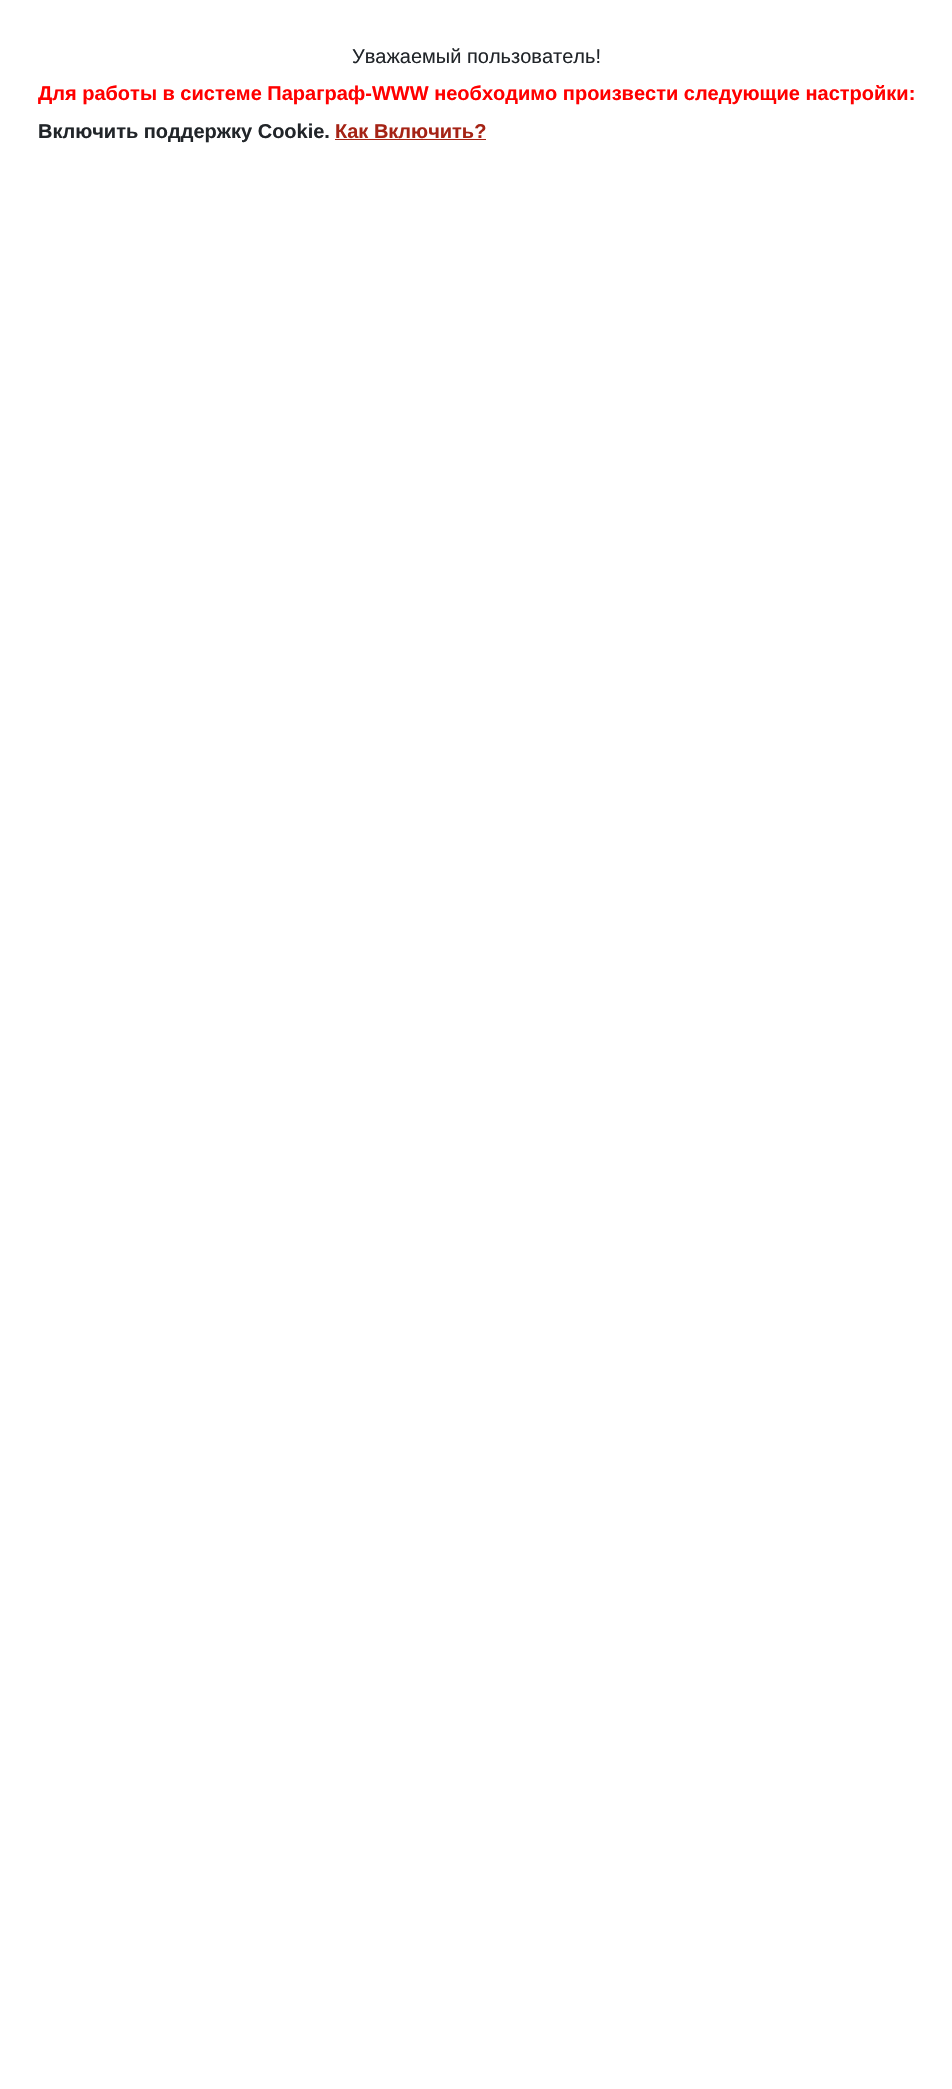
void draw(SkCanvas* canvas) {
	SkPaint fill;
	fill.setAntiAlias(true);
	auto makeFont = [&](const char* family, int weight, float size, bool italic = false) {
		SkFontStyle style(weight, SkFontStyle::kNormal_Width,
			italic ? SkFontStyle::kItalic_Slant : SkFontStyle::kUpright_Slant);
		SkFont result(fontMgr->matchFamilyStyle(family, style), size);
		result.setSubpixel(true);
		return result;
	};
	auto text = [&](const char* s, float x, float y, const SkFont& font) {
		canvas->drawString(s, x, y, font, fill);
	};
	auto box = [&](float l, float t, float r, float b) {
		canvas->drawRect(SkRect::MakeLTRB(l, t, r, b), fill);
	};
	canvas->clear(0xFFFFFFFF);
	fill.setColor(0xFFA52315);
	box(335, 139, 486, 140);
	auto font1 = makeFont("Liberation Sans", 400, 20);
	fill.setColor(0xFF212529);
	text("Уважаемый пользователь!", 352, 63, font1);
	auto font2 = makeFont("Liberation Sans", 700, 20);
	fill.setColor(0xFFFF0000);
	text("Для работы в системе Параграф-WWW необходимо произвести следующие настройки:", 38, 100, font2);
	fill.setColor(0xFF212529);
	text("Включить поддержку Cookie.", 38, 138, font2);
	fill.setColor(0xFFA52315);
	text("Как Включить?", 335, 138, font2);
}
